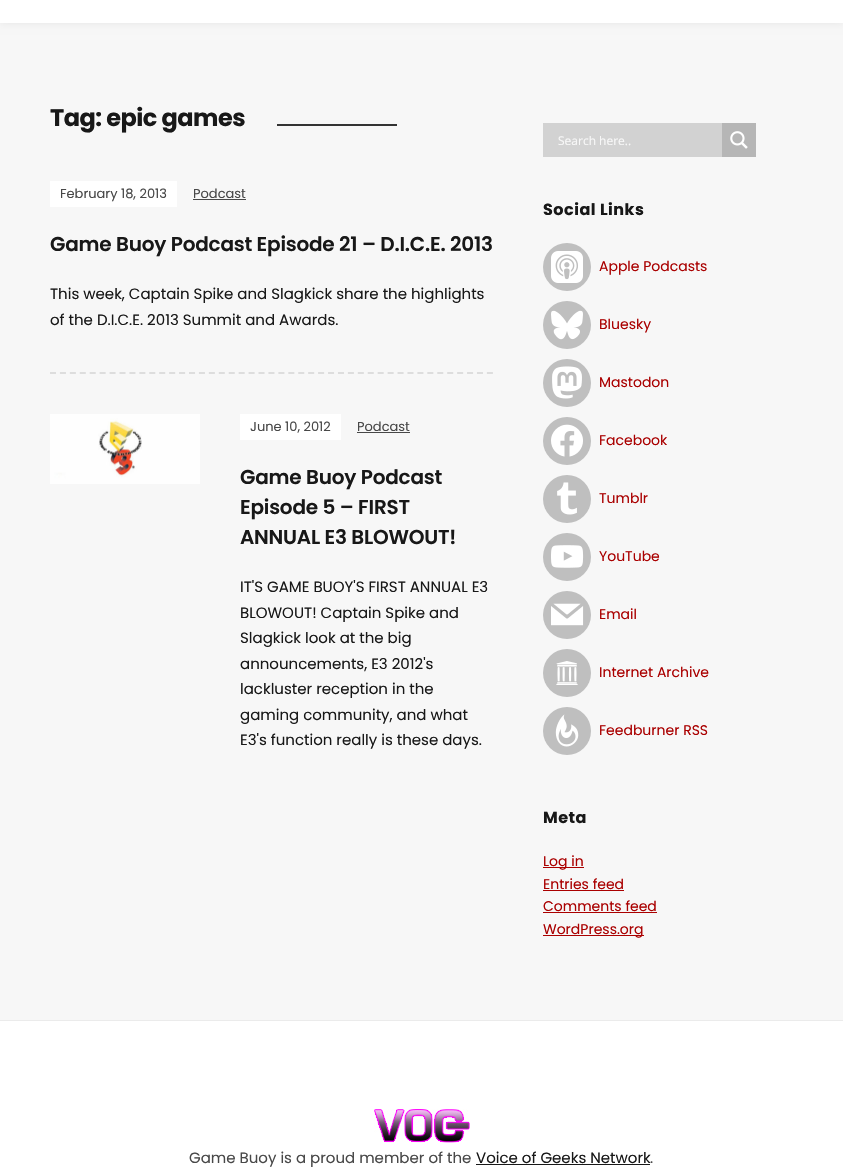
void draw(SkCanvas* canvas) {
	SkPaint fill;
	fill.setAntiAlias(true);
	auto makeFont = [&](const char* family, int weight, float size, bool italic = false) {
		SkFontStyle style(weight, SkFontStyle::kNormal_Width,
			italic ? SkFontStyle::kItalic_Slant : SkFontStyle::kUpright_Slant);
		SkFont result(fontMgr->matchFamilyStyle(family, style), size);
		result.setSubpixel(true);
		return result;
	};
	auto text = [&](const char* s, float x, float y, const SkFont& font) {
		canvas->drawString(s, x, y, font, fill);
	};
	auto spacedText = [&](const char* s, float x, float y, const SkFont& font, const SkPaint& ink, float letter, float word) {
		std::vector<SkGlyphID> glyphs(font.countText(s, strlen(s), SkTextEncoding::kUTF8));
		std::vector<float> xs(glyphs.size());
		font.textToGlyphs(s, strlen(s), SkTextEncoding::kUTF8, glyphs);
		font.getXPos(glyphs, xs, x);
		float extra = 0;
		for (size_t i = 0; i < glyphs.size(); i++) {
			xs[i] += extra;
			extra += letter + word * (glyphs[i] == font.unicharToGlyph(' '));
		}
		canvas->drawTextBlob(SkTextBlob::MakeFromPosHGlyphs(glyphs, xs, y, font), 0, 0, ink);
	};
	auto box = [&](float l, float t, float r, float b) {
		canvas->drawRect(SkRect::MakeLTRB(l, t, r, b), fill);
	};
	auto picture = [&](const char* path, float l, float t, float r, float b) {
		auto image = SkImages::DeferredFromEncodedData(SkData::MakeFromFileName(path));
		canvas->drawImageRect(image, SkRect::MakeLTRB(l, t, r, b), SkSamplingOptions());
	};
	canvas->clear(0xFFF7F7F7);
	fill.setColor(0x12000000);
	fill.setMaskFilter(SkMaskFilter::MakeBlur(kNormal_SkBlurStyle, 4));
	canvas->drawRect(SkRect::MakeLTRB(0, -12, 843, 23), fill);
	fill.setMaskFilter(nullptr);
	fill.setColor(0xFFFFFFFF);
	box(0, 0, 843, 23);
	fill.setColor(0xFF333333);
	box(277, 124, 397, 126);
	fill.setColor(0xFFFFFFFF);
	box(50, 181, 177, 207);
	fill.setColor(0xFF484848);
	box(193, 199, 246, 200);
	fill.setStyle(SkPaint::kStroke_Style);
	fill.setStrokeWidth(2);
	fill.setColor(0xFFDDDDDD);
	fill.setPathEffect(SkDashPathEffect::Make({{6, 3.93f}}, 0));
	canvas->drawPath(SkPathBuilder().moveTo(50, 373).lineTo(493, 373).detach(), fill);
	fill.setPathEffect(nullptr);
	picture("image0.png", 50, 414, 200, 484);
	fill.setStyle(SkPaint::kFill_Style);
	fill.setColor(0xFFFFFFFF);
	box(240, 414, 341, 440);
	fill.setColor(0xFF484848);
	box(357, 432, 410, 433);
	fill.setColor(0xFFD2D2D2);
	box(543, 123, 722, 157);
	fill.setColor(0xFFB6B6B6);
	box(722, 123, 756, 157);
	picture("image1.png", 730, 131, 748, 149);
	fill.setColor(0xFFBFBFBF);
	canvas->drawCircle(567, 267, 24, fill);
	picture("image2.png", 551, 251, 583, 283);
	canvas->drawCircle(567, 325, 24, fill);
	picture("image3.png", 551, 310, 583, 340);
	canvas->drawCircle(567, 383, 24, fill);
	picture("image4.png", 552, 366, 582, 399);
	canvas->drawCircle(567, 441, 24, fill);
	picture("image5.png", 551, 424, 583, 457);
	canvas->drawCircle(567, 499, 24, fill);
	picture("image6.png", 557, 482, 577, 515);
	canvas->drawCircle(567, 557, 24, fill);
	picture("image7.png", 551, 545, 584, 568);
	canvas->drawCircle(567, 615, 24, fill);
	picture("image8.png", 551, 603, 584, 626);
	canvas->drawCircle(567, 673, 24, fill);
	picture("image9.png", 556, 661, 578, 685);
	canvas->drawCircle(567, 731, 24, fill);
	picture("image10.png", 555, 714, 579, 747);
	fill.setColor(0xFFAA0000);
	box(543, 867, 584, 868);
	box(543, 890, 624, 891);
	box(543, 912, 657, 913);
	box(543, 935, 644, 936);
	fill.setColor(0xFFFFFFFF);
	box(0, 1021, 843, 1167);
	fill.setColor(0xFFEBEBEB);
	box(0, 1020, 843, 1021);
	picture("image11.png", 374, 1109, 470, 1143);
	fill.setColor(0xFF181818);
	box(476, 1164, 650, 1165);
	auto font1 = makeFont("Poppins", 700, 24);
	spacedText("Tag: epic games", 50, 126, font1, fill, -0.5f, 0);
	auto font2 = makeFont("Poppins", 400, 13);
	fill.setColor(0xFF484848);
	text("February 18, 2013", 60, 198, font2);
	text("Podcast", 193, 198, font2);
	auto font3 = makeFont("Poppins", 600, 20);
	fill.setColor(0xFF181818);
	spacedText("Game Buoy Podcast Episode 21 – D.I.C.E. 2013", 50, 251, font3, fill, -0.2f, 0);
	auto font4 = makeFont("Poppins", 400, 15);
	text("This week, Captain Spike and Slagkick share the highlights", 50, 299, font4);
	text("of the D.I.C.E. 2013 Summit and Awards.", 50, 325, font4);
	fill.setColor(0xFF484848);
	text("June 10, 2012", 250, 431, font2);
	text("Podcast", 357, 431, font2);
	fill.setColor(0xFF181818);
	spacedText("Game Buoy Podcast", 240, 484, font3, fill, -0.2f, 0);
	spacedText("Episode 5 – FIRST", 240, 514, font3, fill, -0.2f, 0);
	spacedText("ANNUAL E3 BLOWOUT!", 240, 544, font3, fill, -0.2f, 0);
	text("IT'S GAME BUOY'S FIRST ANNUAL E3", 240, 592, font4);
	text("BLOWOUT! Captain Spike and", 240, 618, font4);
	text("Slagkick look at the big", 240, 643, font4);
	text("announcements, E3 2012's", 240, 669, font4);
	text("lackluster reception in the", 240, 694, font4);
	text("gaming community, and what", 240, 720, font4);
	text("E3's function really is these days.", 240, 745, font4);
	auto font5 = makeFont("Open Sans", 400, 12);
	fill.setColor(0xFFF8F8F8);
	text("Search here..", 558, 145, font5);
	auto font6 = makeFont("Poppins", 700, 16);
	fill.setColor(0xFF181818);
	spacedText("Social Links", 543, 215, font6, fill, 0.5f, 0);
	auto font7 = makeFont("Poppins", 400, 14);
	fill.setColor(0xFFAA0000);
	text("Apple Podcasts", 599, 271, font7);
	text("Bluesky", 599, 329, font7);
	text("Mastodon", 599, 387, font7);
	text("Facebook", 599, 445, font7);
	text("Tumblr", 599, 503, font7);
	text("YouTube", 599, 561, font7);
	text("Email", 599, 619, font7);
	text("Internet Archive", 599, 677, font7);
	text("Feedburner RSS", 599, 735, font7);
	fill.setColor(0xFF181818);
	spacedText("Meta", 543, 823, font6, fill, 0.5f, 0);
	fill.setColor(0xFFAA0000);
	text("Log in", 543, 866, font7);
	text("Entries feed", 543, 889, font7);
	text("Comments feed", 543, 911, font7);
	text("WordPress.org", 543, 934, font7);
	fill.setColor(0xFF484848);
	text("Game Buoy is a proud member of the", 189, 1163, font4);
	fill.setColor(0xFF181818);
	text("Voice of Geeks Network", 476, 1163, font4);
	fill.setColor(0xFF484848);
	text(".", 650, 1163, font4);
}
